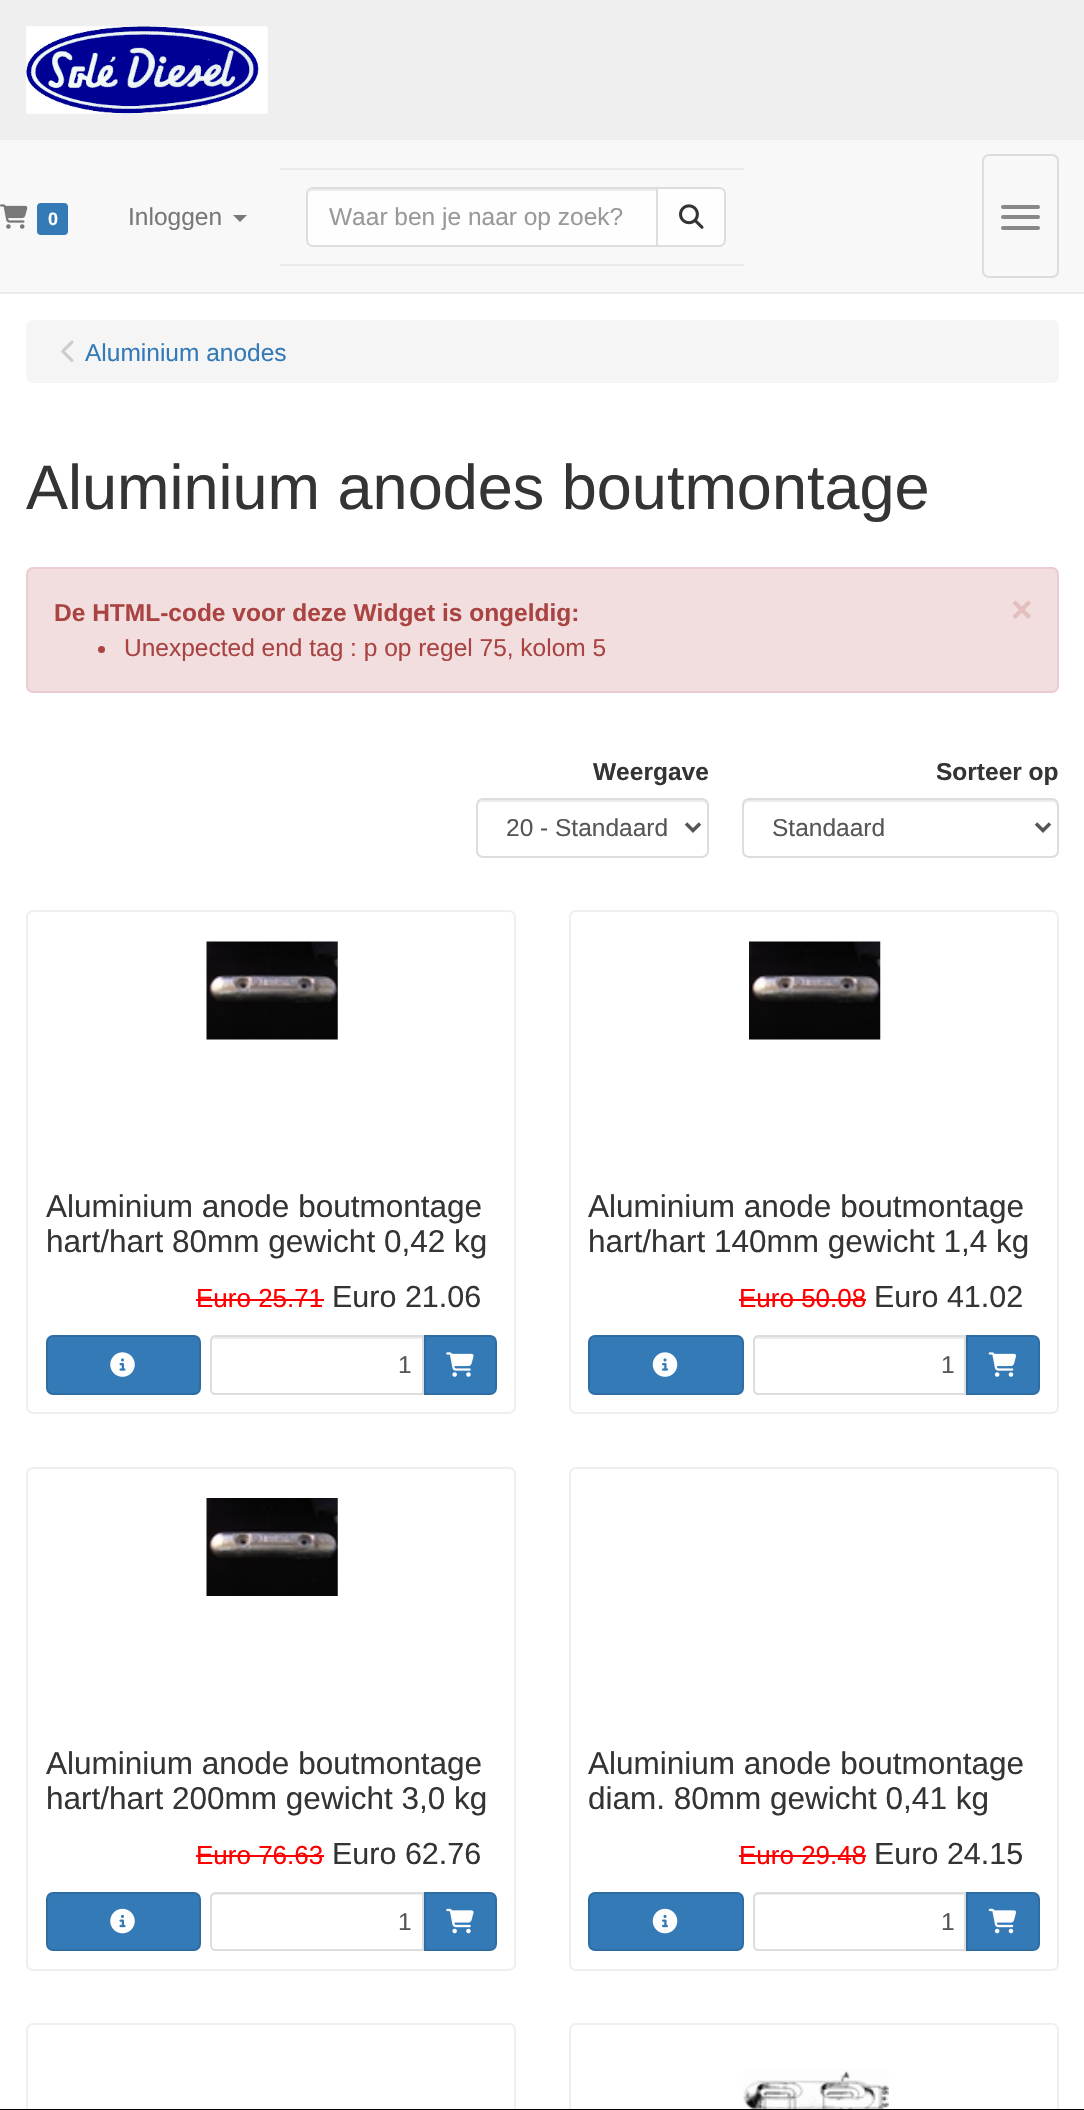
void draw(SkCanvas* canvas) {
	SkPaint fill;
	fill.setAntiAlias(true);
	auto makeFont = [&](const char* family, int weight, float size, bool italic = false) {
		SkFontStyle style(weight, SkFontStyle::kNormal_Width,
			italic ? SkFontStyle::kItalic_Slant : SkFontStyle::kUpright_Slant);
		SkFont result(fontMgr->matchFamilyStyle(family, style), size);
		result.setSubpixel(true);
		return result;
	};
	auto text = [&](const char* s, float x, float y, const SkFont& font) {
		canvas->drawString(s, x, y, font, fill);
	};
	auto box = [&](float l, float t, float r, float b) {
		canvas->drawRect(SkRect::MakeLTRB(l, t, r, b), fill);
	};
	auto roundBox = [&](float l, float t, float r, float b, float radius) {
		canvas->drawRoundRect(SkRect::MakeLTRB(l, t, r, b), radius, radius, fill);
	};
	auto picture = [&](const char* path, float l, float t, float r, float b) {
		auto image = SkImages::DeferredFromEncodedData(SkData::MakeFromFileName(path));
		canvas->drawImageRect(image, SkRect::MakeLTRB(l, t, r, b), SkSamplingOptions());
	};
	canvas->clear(0xFFFFFFFF);
	fill.setColor(0xFFEFEFEF);
	box(0, 0, 1084, 140);
	picture("image0.png", 26, 26, 268, 114);
	fill.setColor(0xFFF8F8F8);
	box(0, 140, 1084, 292);
	fill.setColor(0xFFEBEBEB);
	box(0, 292, 1084, 294);
	picture("image1.png", 0, 204, 28, 229);
	fill.setColor(0xFF337AB7);
	roundBox(37, 203, 68, 235, 4);
	fill.setColor(0xFF787878);
	canvas->drawPath(SkPathBuilder().moveTo(233, 215).lineTo(247, 215).lineTo(240, 222).close().detach(), fill);
	fill.setColor(0xFFEBEBEB);
	box(280, 168, 744, 170);
	box(280, 264, 744, 266);
	fill.setColor(0xFFFEFEFE);
	canvas->drawPath(SkPathBuilder().moveTo(313, 187).lineTo(658, 187).lineTo(658, 247).lineTo(313, 247).cubicTo(309, 247, 306, 244, 306, 240).lineTo(306, 194).cubicTo(306, 190, 309, 187, 313, 187).close().detach(), fill);
	fill.setColor(0xFFEBEBEB);
	canvas->drawPath(SkPathBuilder().moveTo(313, 191).lineTo(656, 191).lineTo(656, 189).lineTo(313, 189).cubicTo(309, 189, 308, 193, 308, 196).cubicTo(308, 193, 310, 191, 313, 191).close().detach(), fill);
	fill.setStyle(SkPaint::kStroke_Style);
	fill.setStrokeWidth(2);
	fill.setColor(0xFFDDDDDD);
	canvas->drawPath(SkPathBuilder().moveTo(313, 188).lineTo(657, 188).lineTo(657, 246).lineTo(313, 246).cubicTo(309.5f, 246, 307, 243.5f, 307, 240).lineTo(307, 194).cubicTo(307, 190.5f, 309.5f, 188, 313, 188).close().detach(), fill);
	fill.setStyle(SkPaint::kFill_Style);
	fill.setColor(0xFFFEFEFE);
	canvas->drawPath(SkPathBuilder().moveTo(657, 188).lineTo(719, 188).cubicTo(722.5f, 188, 725, 190.5f, 725, 194).lineTo(725, 240).cubicTo(725, 243.5f, 722.5f, 246, 719, 246).lineTo(657, 246).close().detach(), fill);
	fill.setStyle(SkPaint::kStroke_Style);
	fill.setColor(0xFFDDDDDD);
	canvas->drawPath(SkPathBuilder().moveTo(657, 188).lineTo(719, 188).cubicTo(722.5f, 188, 725, 190.5f, 725, 194).lineTo(725, 240).cubicTo(725, 243.5f, 722.5f, 246, 719, 246).lineTo(657, 246).close().detach(), fill);
	picture("image2.png", 679, 204, 704, 229);
	canvas->drawRoundRect(SkRect::MakeLTRB(983, 155, 1058, 277), 6, 6, fill);
	fill.setStyle(SkPaint::kFill_Style);
	fill.setColor(0xFF888888);
	roundBox(1001, 205, 1040, 209, 2);
	roundBox(1001, 215, 1040, 219, 2);
	roundBox(1001, 226, 1040, 230, 2);
	fill.setColor(0xFFF5F5F5);
	roundBox(26, 320, 1059, 383, 7);
	picture("image3.png", 61, 340, 74, 362);
	fill.setColor(0xFFF2DEDE);
	canvas->drawRoundRect(SkRect::MakeLTRB(27, 568, 1058, 692), 6, 6, fill);
	fill.setStyle(SkPaint::kStroke_Style);
	fill.setColor(0xFFEBCCD1);
	canvas->drawRoundRect(SkRect::MakeLTRB(27, 568, 1058, 692), 6, 6, fill);
	fill.setStyle(SkPaint::kFill_Style);
	fill.setColor(0xFFA94442);
	canvas->drawCircle(101.5f, 649.5f, 3.5f, fill);
	fill.setColor(0xFFECECEC);
	canvas->drawPath(SkPathBuilder().moveTo(483, 802).lineTo(702, 802).cubicTo(705, 802, 707, 804, 707, 807).cubicTo(707, 804, 707, 801, 703, 800).lineTo(483, 800).cubicTo(479, 800, 478, 804, 478, 807).cubicTo(478, 804, 480, 802, 483, 802).close().detach(), fill);
	fill.setStyle(SkPaint::kStroke_Style);
	fill.setColor(0xFFDDDDDD);
	canvas->drawRoundRect(SkRect::MakeLTRB(477, 799, 708, 857), 6, 6, fill);
	fill.setStrokeWidth(3.5f);
	fill.setColor(0xFF565656);
	canvas->drawPath(SkPathBuilder().moveTo(686, 823.5f).lineTo(693, 830.5f).lineTo(700, 823.5f).detach(), fill);
	fill.setStyle(SkPaint::kFill_Style);
	fill.setColor(0xFFECECEC);
	canvas->drawPath(SkPathBuilder().moveTo(749, 802).lineTo(1052, 802).cubicTo(1055, 802, 1057, 804, 1057, 807).lineTo(1057, 805).cubicTo(1057, 802, 1055, 800, 1052, 800).lineTo(749, 800).cubicTo(746, 800, 744, 802, 744, 805).lineTo(744, 807).cubicTo(744, 804, 746, 802, 749, 802).close().detach(), fill);
	fill.setStyle(SkPaint::kStroke_Style);
	fill.setStrokeWidth(2);
	fill.setColor(0xFFDDDDDD);
	canvas->drawRoundRect(SkRect::MakeLTRB(743, 799, 1058, 857), 6, 6, fill);
	fill.setStrokeWidth(3.5f);
	fill.setColor(0xFF565656);
	canvas->drawPath(SkPathBuilder().moveTo(1036, 823.5f).lineTo(1043, 830.5f).lineTo(1050, 823.5f).detach(), fill);
	fill.setStrokeWidth(2);
	fill.setColor(0xFFEFEFEF);
	canvas->drawRoundRect(SkRect::MakeLTRB(27, 911, 515, 1413), 6, 6, fill);
	picture("image4.png", 206, 941, 338, 1040);
	fill.setStyle(SkPaint::kFill_Style);
	fill.setColor(0xFFFF0000);
	box(196, 1299, 324, 1301);
	fill.setColor(0xFF337AB7);
	canvas->drawRoundRect(SkRect::MakeLTRB(47, 1336, 200, 1394), 6, 6, fill);
	fill.setStyle(SkPaint::kStroke_Style);
	fill.setColor(0xFF2E6DA4);
	canvas->drawRoundRect(SkRect::MakeLTRB(47, 1336, 200, 1394), 6, 6, fill);
	picture("image5.png", 110, 1352, 135, 1377);
	fill.setStyle(SkPaint::kFill_Style);
	fill.setColor(0xFFECECEC);
	canvas->drawPath(SkPathBuilder().moveTo(215, 1339).lineTo(422, 1339).lineTo(422, 1337).lineTo(214, 1337).cubicTo(212, 1338, 212, 1340, 212, 1342).cubicTo(212, 1340, 213, 1339, 215, 1339).close().detach(), fill);
	fill.setStyle(SkPaint::kStroke_Style);
	fill.setColor(0xFFDDDDDD);
	canvas->drawPath(SkPathBuilder().moveTo(215, 1336).lineTo(423, 1336).lineTo(423, 1394).lineTo(215, 1394).cubicTo(213, 1394, 211, 1392, 211, 1390).lineTo(211, 1340).cubicTo(211, 1338, 213, 1336, 215, 1336).close().detach(), fill);
	fill.setStyle(SkPaint::kFill_Style);
	fill.setColor(0xFF337AB7);
	canvas->drawPath(SkPathBuilder().moveTo(425, 1336).lineTo(490, 1336).cubicTo(493.5f, 1336, 496, 1338.5f, 496, 1342).lineTo(496, 1388).cubicTo(496, 1391.5f, 493.5f, 1394, 490, 1394).lineTo(425, 1394).close().detach(), fill);
	fill.setStyle(SkPaint::kStroke_Style);
	fill.setColor(0xFF2E6DA4);
	canvas->drawPath(SkPathBuilder().moveTo(425, 1336).lineTo(490, 1336).cubicTo(493.5f, 1336, 496, 1338.5f, 496, 1342).lineTo(496, 1388).cubicTo(496, 1391.5f, 493.5f, 1394, 490, 1394).lineTo(425, 1394).close().detach(), fill);
	picture("image6.png", 446, 1352, 474, 1377);
	fill.setColor(0xFFEFEFEF);
	canvas->drawRoundRect(SkRect::MakeLTRB(570, 911, 1058, 1413), 6, 6, fill);
	picture("image7.png", 749, 941, 881, 1040);
	fill.setStyle(SkPaint::kFill_Style);
	fill.setColor(0xFFFF0000);
	box(739, 1299, 866, 1301);
	fill.setColor(0xFF337AB7);
	canvas->drawRoundRect(SkRect::MakeLTRB(589, 1336, 743, 1394), 6, 6, fill);
	fill.setStyle(SkPaint::kStroke_Style);
	fill.setColor(0xFF2E6DA4);
	canvas->drawRoundRect(SkRect::MakeLTRB(589, 1336, 743, 1394), 6, 6, fill);
	picture("image8.png", 652, 1352, 678, 1377);
	fill.setStyle(SkPaint::kFill_Style);
	fill.setColor(0xFFECECEC);
	canvas->drawPath(SkPathBuilder().moveTo(758, 1339).lineTo(964, 1339).lineTo(964, 1337).lineTo(756, 1337).cubicTo(754, 1338, 754, 1340, 754, 1342).cubicTo(754, 1340, 756, 1339, 758, 1339).close().detach(), fill);
	fill.setStyle(SkPaint::kStroke_Style);
	fill.setColor(0xFFDDDDDD);
	canvas->drawPath(SkPathBuilder().moveTo(758, 1336).lineTo(965, 1336).lineTo(965, 1394).lineTo(758, 1394).cubicTo(756, 1394, 754, 1392, 754, 1390).lineTo(754, 1340).cubicTo(754, 1338, 756, 1336, 758, 1336).close().detach(), fill);
	fill.setStyle(SkPaint::kFill_Style);
	fill.setColor(0xFF337AB7);
	canvas->drawPath(SkPathBuilder().moveTo(967, 1336).lineTo(1033, 1336).cubicTo(1036.5f, 1336, 1039, 1338.5f, 1039, 1342).lineTo(1039, 1388).cubicTo(1039, 1391.5f, 1036.5f, 1394, 1033, 1394).lineTo(967, 1394).close().detach(), fill);
	fill.setStyle(SkPaint::kStroke_Style);
	fill.setColor(0xFF2E6DA4);
	canvas->drawPath(SkPathBuilder().moveTo(967, 1336).lineTo(1033, 1336).cubicTo(1036.5f, 1336, 1039, 1338.5f, 1039, 1342).lineTo(1039, 1388).cubicTo(1039, 1391.5f, 1036.5f, 1394, 1033, 1394).lineTo(967, 1394).close().detach(), fill);
	picture("image9.png", 988, 1352, 1016, 1377);
	fill.setColor(0xFFEFEFEF);
	canvas->drawRoundRect(SkRect::MakeLTRB(27, 1468, 515, 1970), 6, 6, fill);
	picture("image10.png", 206, 1498, 338, 1596);
	fill.setStyle(SkPaint::kFill_Style);
	fill.setColor(0xFFFF0000);
	box(196, 1855, 324, 1857);
	fill.setColor(0xFF337AB7);
	canvas->drawRoundRect(SkRect::MakeLTRB(47, 1893, 200, 1950), 6, 6, fill);
	fill.setStyle(SkPaint::kStroke_Style);
	fill.setColor(0xFF2E6DA4);
	canvas->drawRoundRect(SkRect::MakeLTRB(47, 1893, 200, 1950), 6, 6, fill);
	picture("image11.png", 110, 1908, 135, 1934);
	fill.setStyle(SkPaint::kFill_Style);
	fill.setColor(0xFFECECEC);
	canvas->drawPath(SkPathBuilder().moveTo(215, 1895).lineTo(422, 1895).lineTo(422, 1894).lineTo(214, 1894).cubicTo(212, 1895, 212, 1897, 212, 1899).cubicTo(212, 1897, 213, 1895, 215, 1895).close().detach(), fill);
	fill.setStyle(SkPaint::kStroke_Style);
	fill.setColor(0xFFDDDDDD);
	canvas->drawPath(SkPathBuilder().moveTo(215, 1893).lineTo(423, 1893).lineTo(423, 1950).lineTo(215, 1950).cubicTo(213, 1950, 211, 1948, 211, 1946).lineTo(211, 1897).cubicTo(211, 1895, 213, 1893, 215, 1893).close().detach(), fill);
	fill.setStyle(SkPaint::kFill_Style);
	fill.setColor(0xFF337AB7);
	canvas->drawPath(SkPathBuilder().moveTo(425, 1893).lineTo(490, 1893).cubicTo(493.5f, 1893, 496, 1895.5f, 496, 1899).lineTo(496, 1944).cubicTo(496, 1947.5f, 493.5f, 1950, 490, 1950).lineTo(425, 1950).close().detach(), fill);
	fill.setStyle(SkPaint::kStroke_Style);
	fill.setColor(0xFF2E6DA4);
	canvas->drawPath(SkPathBuilder().moveTo(425, 1893).lineTo(490, 1893).cubicTo(493.5f, 1893, 496, 1895.5f, 496, 1899).lineTo(496, 1944).cubicTo(496, 1947.5f, 493.5f, 1950, 490, 1950).lineTo(425, 1950).close().detach(), fill);
	picture("image12.png", 446, 1908, 474, 1934);
	fill.setColor(0xFFEFEFEF);
	canvas->drawRoundRect(SkRect::MakeLTRB(570, 1468, 1058, 1970), 6, 6, fill);
	fill.setStyle(SkPaint::kFill_Style);
	fill.setColor(0xFFFF0000);
	box(739, 1855, 866, 1857);
	fill.setColor(0xFF337AB7);
	canvas->drawRoundRect(SkRect::MakeLTRB(589, 1893, 743, 1950), 6, 6, fill);
	fill.setStyle(SkPaint::kStroke_Style);
	fill.setColor(0xFF2E6DA4);
	canvas->drawRoundRect(SkRect::MakeLTRB(589, 1893, 743, 1950), 6, 6, fill);
	picture("image13.png", 652, 1908, 678, 1934);
	fill.setStyle(SkPaint::kFill_Style);
	fill.setColor(0xFFECECEC);
	canvas->drawPath(SkPathBuilder().moveTo(758, 1895).lineTo(964, 1895).lineTo(964, 1894).lineTo(756, 1894).cubicTo(754, 1895, 754, 1897, 754, 1899).cubicTo(754, 1897, 756, 1895, 758, 1895).close().detach(), fill);
	fill.setStyle(SkPaint::kStroke_Style);
	fill.setColor(0xFFDDDDDD);
	canvas->drawPath(SkPathBuilder().moveTo(758, 1893).lineTo(965, 1893).lineTo(965, 1950).lineTo(758, 1950).cubicTo(756, 1950, 754, 1948, 754, 1946).lineTo(754, 1897).cubicTo(754, 1895, 756, 1893, 758, 1893).close().detach(), fill);
	fill.setStyle(SkPaint::kFill_Style);
	fill.setColor(0xFF337AB7);
	canvas->drawPath(SkPathBuilder().moveTo(967, 1893).lineTo(1033, 1893).cubicTo(1036.5f, 1893, 1039, 1895.5f, 1039, 1899).lineTo(1039, 1944).cubicTo(1039, 1947.5f, 1036.5f, 1950, 1033, 1950).lineTo(967, 1950).close().detach(), fill);
	fill.setStyle(SkPaint::kStroke_Style);
	fill.setColor(0xFF2E6DA4);
	canvas->drawPath(SkPathBuilder().moveTo(967, 1893).lineTo(1033, 1893).cubicTo(1036.5f, 1893, 1039, 1895.5f, 1039, 1899).lineTo(1039, 1944).cubicTo(1039, 1947.5f, 1036.5f, 1950, 1033, 1950).lineTo(967, 1950).close().detach(), fill);
	picture("image14.png", 988, 1908, 1017, 1934);
	fill.setColor(0xFFEFEFEF);
	canvas->drawRoundRect(SkRect::MakeLTRB(27, 2024, 515, 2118), 6, 6, fill);
	canvas->drawRoundRect(SkRect::MakeLTRB(570, 2024, 1058, 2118), 6, 6, fill);
	picture("image15.png", 743, 2069, 889, 2109);
	fill.setStyle(SkPaint::kFill_Style);
	fill.setColor(0xFF000000);
	box(0, 2109, 1084, 2110);
	auto font1 = makeFont("Liberation Sans", 700, 18);
	fill.setColor(0xFFFFFFFF);
	text("0", 48, 225, font1);
	auto font2 = makeFont("Liberation Sans", 400, 24.5f);
	fill.setColor(0xFF787878);
	text("Inloggen", 128, 225, font2);
	fill.setColor(0xFF999999);
	text("Waar ben je naar op zoek?", 329, 225, font2);
	fill.setColor(0xFF337AB7);
	text("Aluminium anodes", 85, 361, font2);
	auto font3 = makeFont("Liberation Sans", 400, 63);
	fill.setColor(0xFF343434);
	text("Aluminium anodes boutmontage", 26, 509, font3);
	auto font4 = makeFont("Liberation Sans", 700, 24.5f);
	fill.setColor(0xFFA94442);
	text("De HTML-code voor deze Widget is ongeldig:", 54, 621, font4);
	auto font5 = makeFont("Liberation Sans", 700, 37);
	fill.setColor(0xFFE3BFBF);
	text("×", 1011, 622, font5);
	fill.setColor(0xFFA94442);
	text("Unexpected end tag : p op regel 75, kolom 5", 124, 656, font2);
	fill.setColor(0xFF343434);
	text("Weergave", 593, 780, font4);
	fill.setColor(0xFF565656);
	text("20 - Standaard", 506, 836, font2);
	fill.setColor(0xFF343434);
	text("Sorteer op", 936, 780, font4);
	fill.setColor(0xFF565656);
	text("Standaard", 772, 836, font2);
	auto font6 = makeFont("Liberation Sans", 400, 31.5f);
	fill.setColor(0xFF343434);
	text("Aluminium anode boutmontage", 46, 1217, font6);
	text("hart/hart 80mm gewicht 0,42 kg", 46, 1252, font6);
	auto font7 = makeFont("Liberation Sans", 400, 26);
	fill.setColor(0xFFFF0000);
	text("Euro 25.71", 196, 1307, font7);
	auto font8 = makeFont("Liberation Sans", 400, 30.5f);
	fill.setColor(0xFF343434);
	text("Euro 21.06", 332, 1307, font8);
	fill.setColor(0xFF565656);
	text("1", 398, 1373, font2);
	fill.setColor(0xFF343434);
	text("Aluminium anode boutmontage", 588, 1217, font6);
	text("hart/hart 140mm gewicht 1,4 kg", 588, 1252, font6);
	fill.setColor(0xFFFF0000);
	text("Euro 50.08", 739, 1307, font7);
	fill.setColor(0xFF343434);
	text("Euro 41.02", 874, 1307, font8);
	fill.setColor(0xFF565656);
	text("1", 941, 1373, font2);
	fill.setColor(0xFF343434);
	text("Aluminium anode boutmontage", 46, 1774, font6);
	text("hart/hart 200mm gewicht 3,0 kg", 46, 1809, font6);
	fill.setColor(0xFFFF0000);
	text("Euro 76.63", 196, 1864, font7);
	fill.setColor(0xFF343434);
	text("Euro 62.76", 332, 1864, font8);
	fill.setColor(0xFF565656);
	text("1", 398, 1930, font2);
	fill.setColor(0xFF343434);
	text("Aluminium anode boutmontage", 588, 1774, font6);
	text("diam. 80mm gewicht 0,41 kg", 588, 1809, font6);
	fill.setColor(0xFFFF0000);
	text("Euro 29.48", 739, 1864, font7);
	fill.setColor(0xFF343434);
	text("Euro 24.15", 874, 1864, font8);
	fill.setColor(0xFF565656);
	text("1", 941, 1930, font2);
}
